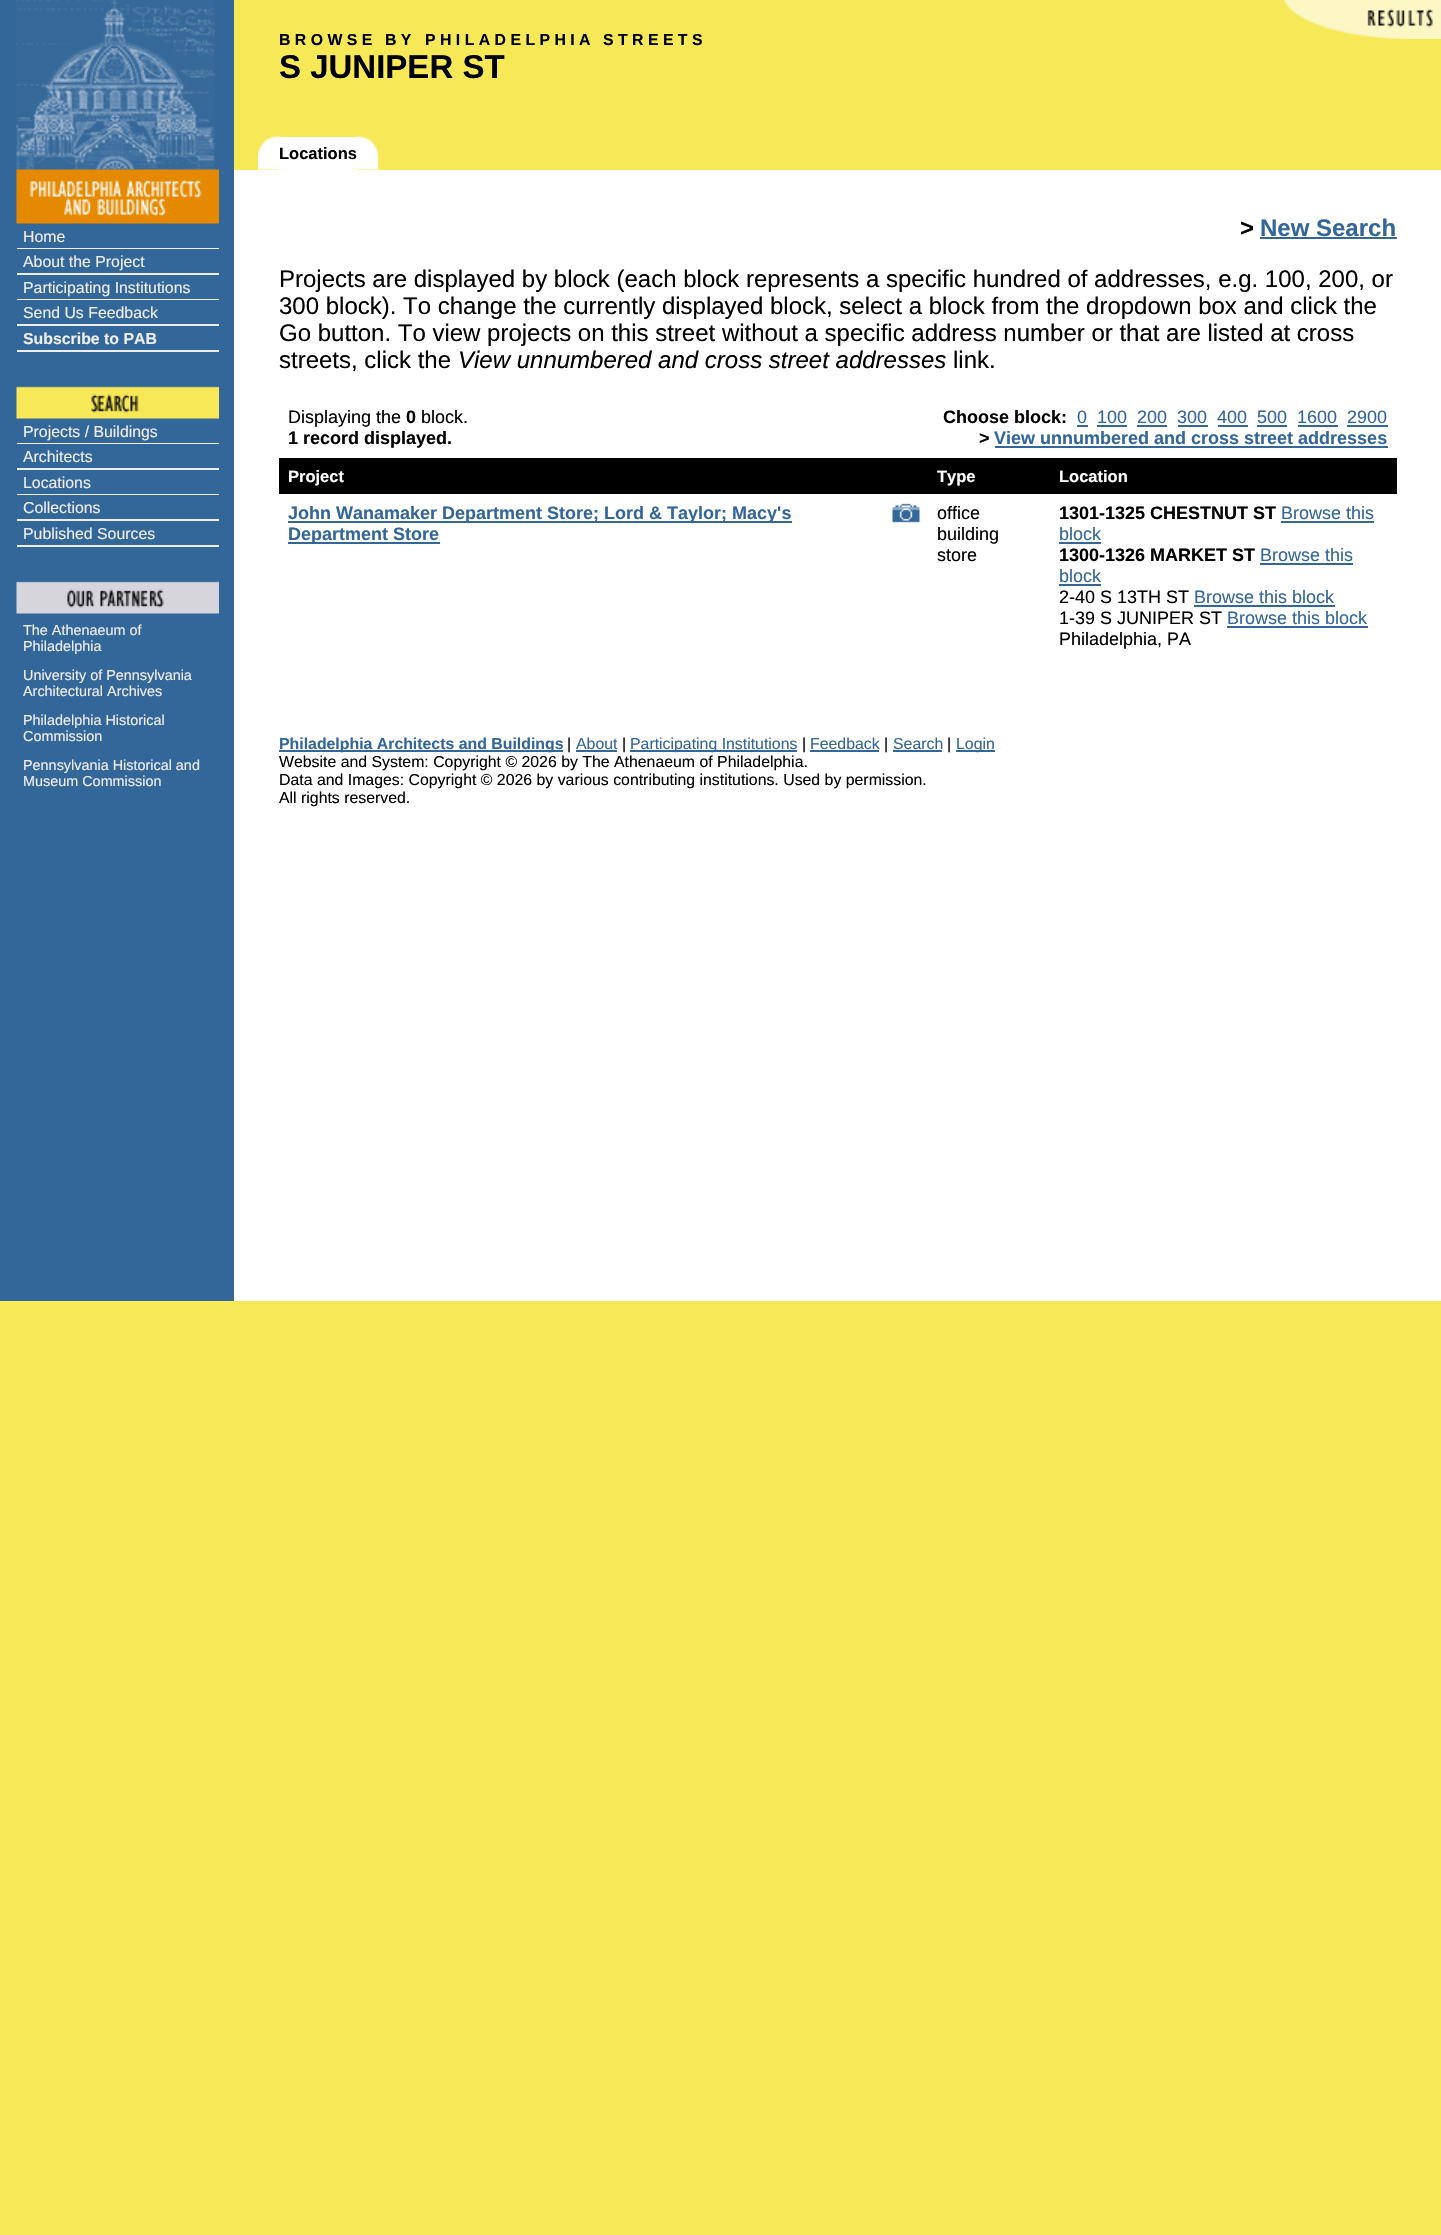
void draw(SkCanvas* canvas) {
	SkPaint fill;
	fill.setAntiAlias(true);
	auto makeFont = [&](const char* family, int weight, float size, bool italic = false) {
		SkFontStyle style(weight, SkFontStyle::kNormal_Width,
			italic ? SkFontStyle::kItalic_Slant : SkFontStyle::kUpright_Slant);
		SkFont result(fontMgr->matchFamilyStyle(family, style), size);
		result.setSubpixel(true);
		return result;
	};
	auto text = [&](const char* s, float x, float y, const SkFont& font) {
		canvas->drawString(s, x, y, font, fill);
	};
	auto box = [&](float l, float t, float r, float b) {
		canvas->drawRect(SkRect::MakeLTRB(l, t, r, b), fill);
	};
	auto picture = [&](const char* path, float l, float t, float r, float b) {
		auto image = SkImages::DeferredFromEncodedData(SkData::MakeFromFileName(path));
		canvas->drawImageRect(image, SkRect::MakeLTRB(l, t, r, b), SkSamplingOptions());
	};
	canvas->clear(0xFFF6E856);
	fill.setColor(0xFF336699);
	box(0, 0, 234, 1301);
	picture("image0.png", 16, 0, 215, 170);
	picture("image1.png", 1283, 0, 1441, 39);
	picture("image2.png", 258, 136, 279, 170);
	fill.setColor(0xFFFFFFFF);
	box(279, 137, 357, 170);
	picture("image3.png", 357, 136, 379, 170);
	picture("image4.png", 16, 169, 219, 224);
	fill.setColor(0xFFEEEEEE);
	box(17, 248, 219, 249);
	box(17, 273, 219, 275);
	box(17, 299, 219, 300);
	box(17, 324, 219, 326);
	box(17, 350, 219, 352);
	picture("image5.png", 16, 386, 219, 419);
	box(17, 443, 219, 444);
	box(17, 468, 219, 470);
	box(17, 494, 219, 495);
	box(17, 519, 219, 521);
	box(17, 545, 219, 547);
	picture("image6.png", 16, 581, 219, 614);
	fill.setColor(0xFFFFFFFF);
	box(234, 170, 1441, 1301);
	fill.setColor(0xFF336699);
	box(1260, 237, 1397, 239);
	box(1077, 425, 1088, 427);
	box(1097, 425, 1127, 427);
	box(1137, 425, 1167, 427);
	box(1178, 425, 1208, 427);
	box(1218, 425, 1248, 427);
	box(1257, 425, 1287, 427);
	box(1298, 425, 1338, 427);
	box(1347, 425, 1388, 427);
	box(995, 446, 1388, 448);
	fill.setColor(0xFF000000);
	box(279, 458, 1397, 494);
	fill.setColor(0xFF336699);
	box(288, 521, 792, 523);
	box(288, 542, 440, 544);
	picture("image7.png", 892, 503, 920, 523);
	box(1281, 521, 1374, 523);
	box(1059, 542, 1101, 544);
	box(1260, 563, 1353, 565);
	box(1059, 584, 1101, 586);
	box(1194, 605, 1335, 607);
	box(1227, 626, 1368, 628);
	box(279, 750, 563, 752);
	box(576, 750, 617, 752);
	box(630, 750, 797, 752);
	box(810, 750, 879, 752);
	box(893, 750, 942, 752);
	box(956, 750, 995, 752);
	auto font1 = makeFont("Liberation Sans", 700, 15.85f);
	fill.setColor(0xFF000000);
	text("B R O W S E", 279, 45, font1);
	text("B Y", 385, 45, font1);
	text("P H I L A D E L P H I A", 425, 45, font1);
	text("S T R E E T S", 603, 45, font1);
	auto font2 = makeFont("Liberation Sans", 700, 33);
	text("S JUNIPER ST", 279, 78, font2);
	auto font3 = makeFont("Liberation Sans", 700, 16.5f);
	text("Locations", 279, 159, font3);
	auto font4 = makeFont("Liberation Sans", 400, 15.85f);
	fill.setColor(0xFFEEEEEE);
	text("Home", 23, 242, font4);
	text("About the Project", 23, 267, font4);
	text("Participating Institutions", 23, 293, font4);
	text("Send Us Feedback", 23, 318, font4);
	text("Subscribe to PAB", 23, 344, font1);
	text("Projects / Buildings", 23, 437, font4);
	text("Architects", 23, 462, font4);
	text("Locations", 23, 488, font4);
	text("Collections", 23, 513, font4);
	text("Published Sources", 23, 539, font4);
	auto font5 = makeFont("Liberation Sans", 400, 14.4f);
	text("The Athenaeum of", 23, 635, font5);
	text("Philadelphia", 23, 651, font5);
	text("University of Pennsylvania", 23, 680, font5);
	text("Architectural Archives", 23, 696, font5);
	text("Philadelphia Historical", 23, 725, font5);
	text("Commission", 23, 741, font5);
	text("Pennsylvania Historical and", 23, 770, font5);
	text("Museum Commission", 23, 786, font5);
	auto font6 = makeFont("Liberation Sans", 700, 24);
	fill.setColor(0xFF000000);
	text(">", 1240, 236, font6);
	fill.setColor(0xFF336699);
	text("New Search", 1260, 236, font6);
	auto font7 = makeFont("Liberation Sans", 400, 24);
	fill.setColor(0xFF000000);
	text("Projects are displayed by block (each block represents a specific hundred of addresses, e.g. 100, 200, or", 279, 287, font7);
	text("300 block). To change the currently displayed block, select a block from the dropdown box and click the", 279, 314, font7);
	text("Go button. To view projects on this street without a specific address number or that are listed at cross", 279, 341, font7);
	text("streets, click the", 279, 368, font7);
	auto font8 = makeFont("Liberation Sans", 400, 24, true);
	text("View unnumbered and cross street addresses", 458, 368, font8);
	text("link.", 953, 368, font7);
	auto font9 = makeFont("Liberation Sans", 400, 18);
	text("Displaying the", 288, 423, font9);
	auto font10 = makeFont("Liberation Sans", 700, 18);
	text("0", 406, 423, font10);
	text("block.", 421, 423, font9);
	text("1 record displayed.", 288, 444, font10);
	text("Choose block:", 943, 423, font10);
	fill.setColor(0xFF336699);
	text("0", 1077, 423, font9);
	text("100", 1097, 423, font9);
	text("200", 1137, 423, font9);
	text("300", 1177, 423, font9);
	text("400", 1217, 423, font9);
	text("500", 1257, 423, font9);
	text("1600", 1297, 423, font9);
	text("2900", 1347, 423, font9);
	fill.setColor(0xFF000000);
	text(">", 979, 444, font10);
	fill.setColor(0xFF336699);
	text("View unnumbered and cross street addresses", 994, 444, font10);
	fill.setColor(0xFFFFFFFF);
	text("Project", 288, 482, font3);
	text("Type", 937, 482, font3);
	text("Location", 1059, 482, font3);
	fill.setColor(0xFF336699);
	text("John Wanamaker Department Store; Lord & Taylor; Macy's", 288, 519, font10);
	text("Department Store", 288, 540, font10);
	fill.setColor(0xFF000000);
	text("office", 937, 519, font9);
	text("building", 937, 540, font9);
	text("store", 937, 561, font9);
	text("1301-1325 CHESTNUT ST", 1059, 519, font10);
	fill.setColor(0xFF336699);
	text("Browse this", 1281, 519, font9);
	text("block", 1059, 540, font9);
	fill.setColor(0xFF000000);
	text("1300-1326 MARKET ST", 1059, 561, font10);
	fill.setColor(0xFF336699);
	text("Browse this", 1260, 561, font9);
	text("block", 1059, 582, font9);
	fill.setColor(0xFF000000);
	text("2-40 S 13TH ST", 1059, 603, font9);
	fill.setColor(0xFF336699);
	text("Browse this block", 1194, 603, font9);
	fill.setColor(0xFF000000);
	text("1-39 S JUNIPER ST", 1059, 624, font9);
	fill.setColor(0xFF336699);
	text("Browse this block", 1227, 624, font9);
	fill.setColor(0xFF000000);
	text("Philadelphia, PA", 1059, 645, font9);
	fill.setColor(0xFF336699);
	text("Philadelphia Architects and Buildings", 279, 749, font1);
	fill.setColor(0xFF000000);
	text("|", 567, 749, font4);
	fill.setColor(0xFF336699);
	text("About", 576, 749, font4);
	fill.setColor(0xFF000000);
	text("|", 622, 749, font4);
	fill.setColor(0xFF336699);
	text("Participating Institutions", 630, 749, font4);
	fill.setColor(0xFF000000);
	text("|", 802, 749, font4);
	fill.setColor(0xFF336699);
	text("Feedback", 810, 749, font4);
	fill.setColor(0xFF000000);
	text("|", 884, 749, font4);
	fill.setColor(0xFF336699);
	text("Search", 893, 749, font4);
	fill.setColor(0xFF000000);
	text("|", 947, 749, font4);
	fill.setColor(0xFF336699);
	text("Login", 956, 749, font4);
	fill.setColor(0xFF000000);
	text("Website and System: Copyright © 2026 by The Athenaeum of Philadelphia.", 279, 767, font4);
	text("Data and Images: Copyright © 2026 by various contributing institutions. Used by permission.", 279, 785, font4);
	text("All rights reserved.", 279, 803, font4);
}
